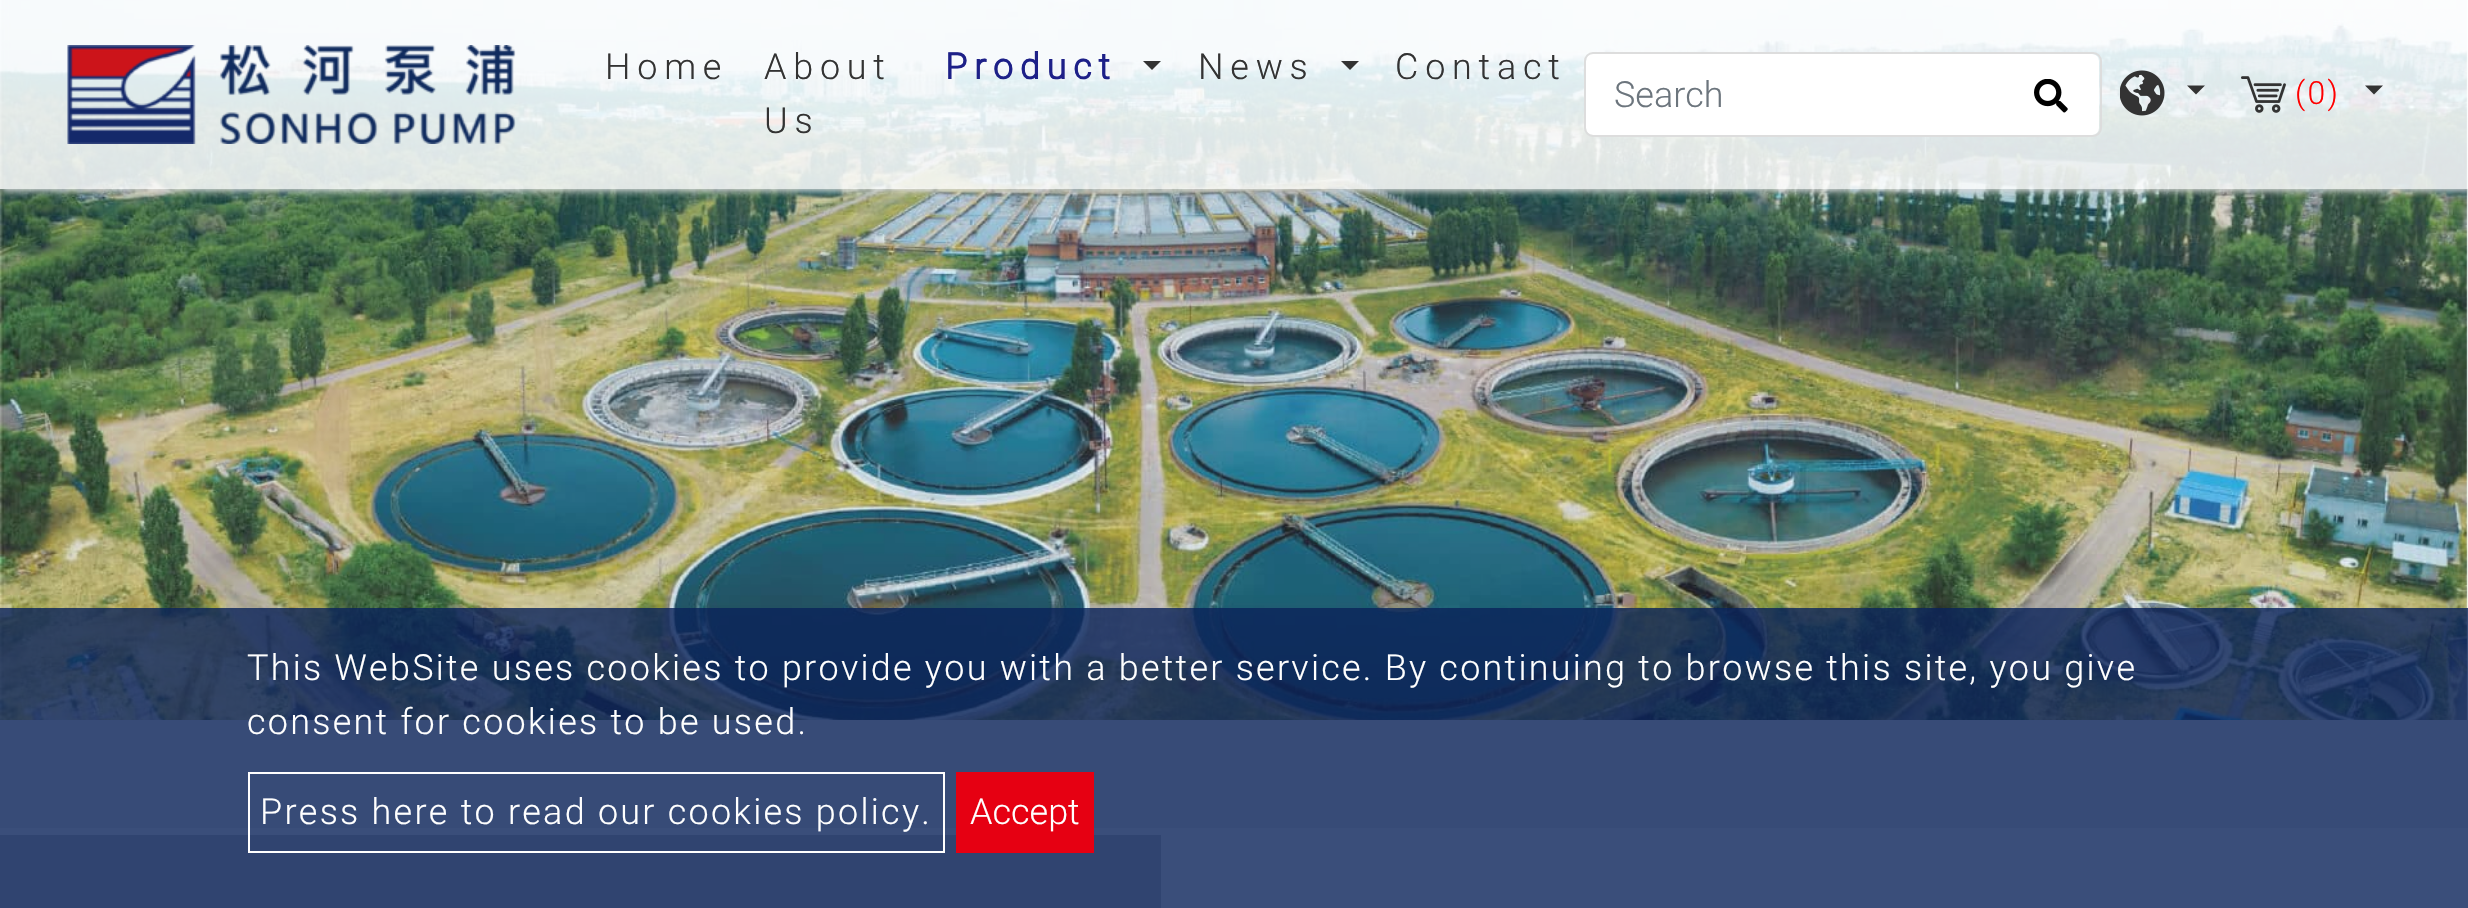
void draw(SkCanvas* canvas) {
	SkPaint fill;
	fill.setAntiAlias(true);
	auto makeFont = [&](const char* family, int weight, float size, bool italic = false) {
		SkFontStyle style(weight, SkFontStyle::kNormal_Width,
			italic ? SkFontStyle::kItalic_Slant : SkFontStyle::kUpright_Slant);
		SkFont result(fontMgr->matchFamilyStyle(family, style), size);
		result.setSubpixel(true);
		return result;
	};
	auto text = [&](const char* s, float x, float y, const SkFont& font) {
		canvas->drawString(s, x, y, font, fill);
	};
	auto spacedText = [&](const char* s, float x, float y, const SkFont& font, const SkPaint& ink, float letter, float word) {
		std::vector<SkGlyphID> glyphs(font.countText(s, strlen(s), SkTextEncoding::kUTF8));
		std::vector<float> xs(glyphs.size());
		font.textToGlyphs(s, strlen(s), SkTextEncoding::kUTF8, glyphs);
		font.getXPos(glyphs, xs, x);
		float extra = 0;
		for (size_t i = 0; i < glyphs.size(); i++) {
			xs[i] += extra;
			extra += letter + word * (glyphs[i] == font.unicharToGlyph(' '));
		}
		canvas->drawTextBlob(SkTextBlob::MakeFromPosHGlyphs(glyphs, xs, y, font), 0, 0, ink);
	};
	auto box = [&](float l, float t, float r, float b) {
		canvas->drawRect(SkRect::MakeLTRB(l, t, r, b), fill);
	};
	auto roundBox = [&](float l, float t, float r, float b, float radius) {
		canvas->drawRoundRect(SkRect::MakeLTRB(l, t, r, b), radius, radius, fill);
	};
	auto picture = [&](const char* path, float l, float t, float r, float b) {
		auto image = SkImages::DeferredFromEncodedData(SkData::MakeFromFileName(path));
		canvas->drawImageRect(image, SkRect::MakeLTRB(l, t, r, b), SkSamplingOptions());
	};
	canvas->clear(0xFFFFFFFF);
	picture("image0.png", 0, 0, 2468, 720);
	fill.setColor(0xFFEEEEEE);
	box(0, 720, 2468, 828);
	canvas->save();
	canvas->clipRect(SkRect::MakeLTRB(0, 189, 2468, 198));
	fill.setColor(0xFFDDDDDD);
	fill.setMaskFilter(SkMaskFilter::MakeBlur(kNormal_SkBlurStyle, 3.5f));
	canvas->drawRect(SkRect::MakeLTRB(2, 2, 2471, 191), fill);
	fill.setMaskFilter(nullptr);
	canvas->restore();
	fill.setColor(0xD9FFFFFF);
	box(0, 0, 2468, 189);
	picture("image1.png", 67, 45, 516, 144);
	fill.setColor(0xFF333333);
	canvas->drawPath(SkPathBuilder().moveTo(1143, 61).lineTo(1161, 61).lineTo(1152, 70).close().detach(), fill);
	canvas->drawPath(SkPathBuilder().moveTo(1341, 61).lineTo(1359, 61).lineTo(1350, 70).close().detach(), fill);
	fill.setColor(0xFFFFFFFF);
	roundBox(1586, 54, 2099, 135, 7);
	fill.setStyle(SkPaint::kStroke_Style);
	fill.setStrokeWidth(2);
	fill.setColor(0xFFDDDDDD);
	canvas->drawRoundRect(SkRect::MakeLTRB(1585, 53, 2101, 136), 8, 8, fill);
	picture("image2.png", 2034, 79, 2068, 113);
	picture("image3.png", 2120, 70, 2165, 116);
	fill.setStyle(SkPaint::kFill_Style);
	fill.setColor(0xFF333333);
	canvas->drawPath(SkPathBuilder().moveTo(2187, 85.5f).lineTo(2205, 85.5f).lineTo(2196, 94.5f).close().detach(), fill);
	picture("image4.png", 2241, 76, 2286, 113);
	canvas->drawPath(SkPathBuilder().moveTo(2365, 85.5f).lineTo(2383, 85.5f).lineTo(2374, 94.5f).close().detach(), fill);
	fill.setColor(0xFFCCCCCC);
	box(0, 835, 1161, 908);
	fill.setColor(0xCC092259);
	box(0, 608, 2468, 908);
	fill.setStyle(SkPaint::kStroke_Style);
	fill.setColor(0xFFFFFFFF);
	canvas->drawRect(SkRect::MakeLTRB(249, 773, 944, 852), fill);
	fill.setStyle(SkPaint::kFill_Style);
	fill.setColor(0xFFE60012);
	box(956, 772, 1094, 853);
	auto font1 = makeFont("Roboto", 300, 36);
	fill.setColor(0xFF333333);
	spacedText("Home", 605, 79, font1, fill, 6.75f, 0);
	spacedText("About", 764, 79, font1, fill, 6.75f, 0);
	spacedText("Us", 764, 133, font1, fill, 6.75f, 0);
	auto font2 = makeFont("Roboto", 700, 36);
	fill.setColor(0xFF1D2088);
	spacedText("Product", 945, 79, font2, fill, 6.75f, 0);
	fill.setColor(0xFF333333);
	spacedText("News", 1198, 79, font1, fill, 6.75f, 0);
	spacedText("Contact", 1395, 79, font1, fill, 6.75f, 0);
	fill.setColor(0xFF6C757D);
	text("Search", 1614, 107, font1);
	auto font3 = makeFont("Roboto", 300, 32);
	fill.setColor(0xFFFF0000);
	spacedText("(0)", 2295, 104, font3, fill, 2.25f, 0);
	fill.setColor(0xFFFFFFFF);
	spacedText("This WebSite uses cookies to provide you with a better service. By continuing to browse this site, you give", 247, 680, font1, fill, 2.25f, 0);
	spacedText("consent for cookies to be used.", 247, 734, font1, fill, 2.25f, 0);
	spacedText("Press here to read our cookies policy.", 260, 824, font1, fill, 2.25f, 0);
	text("Accept", 970, 824, font1);
}
